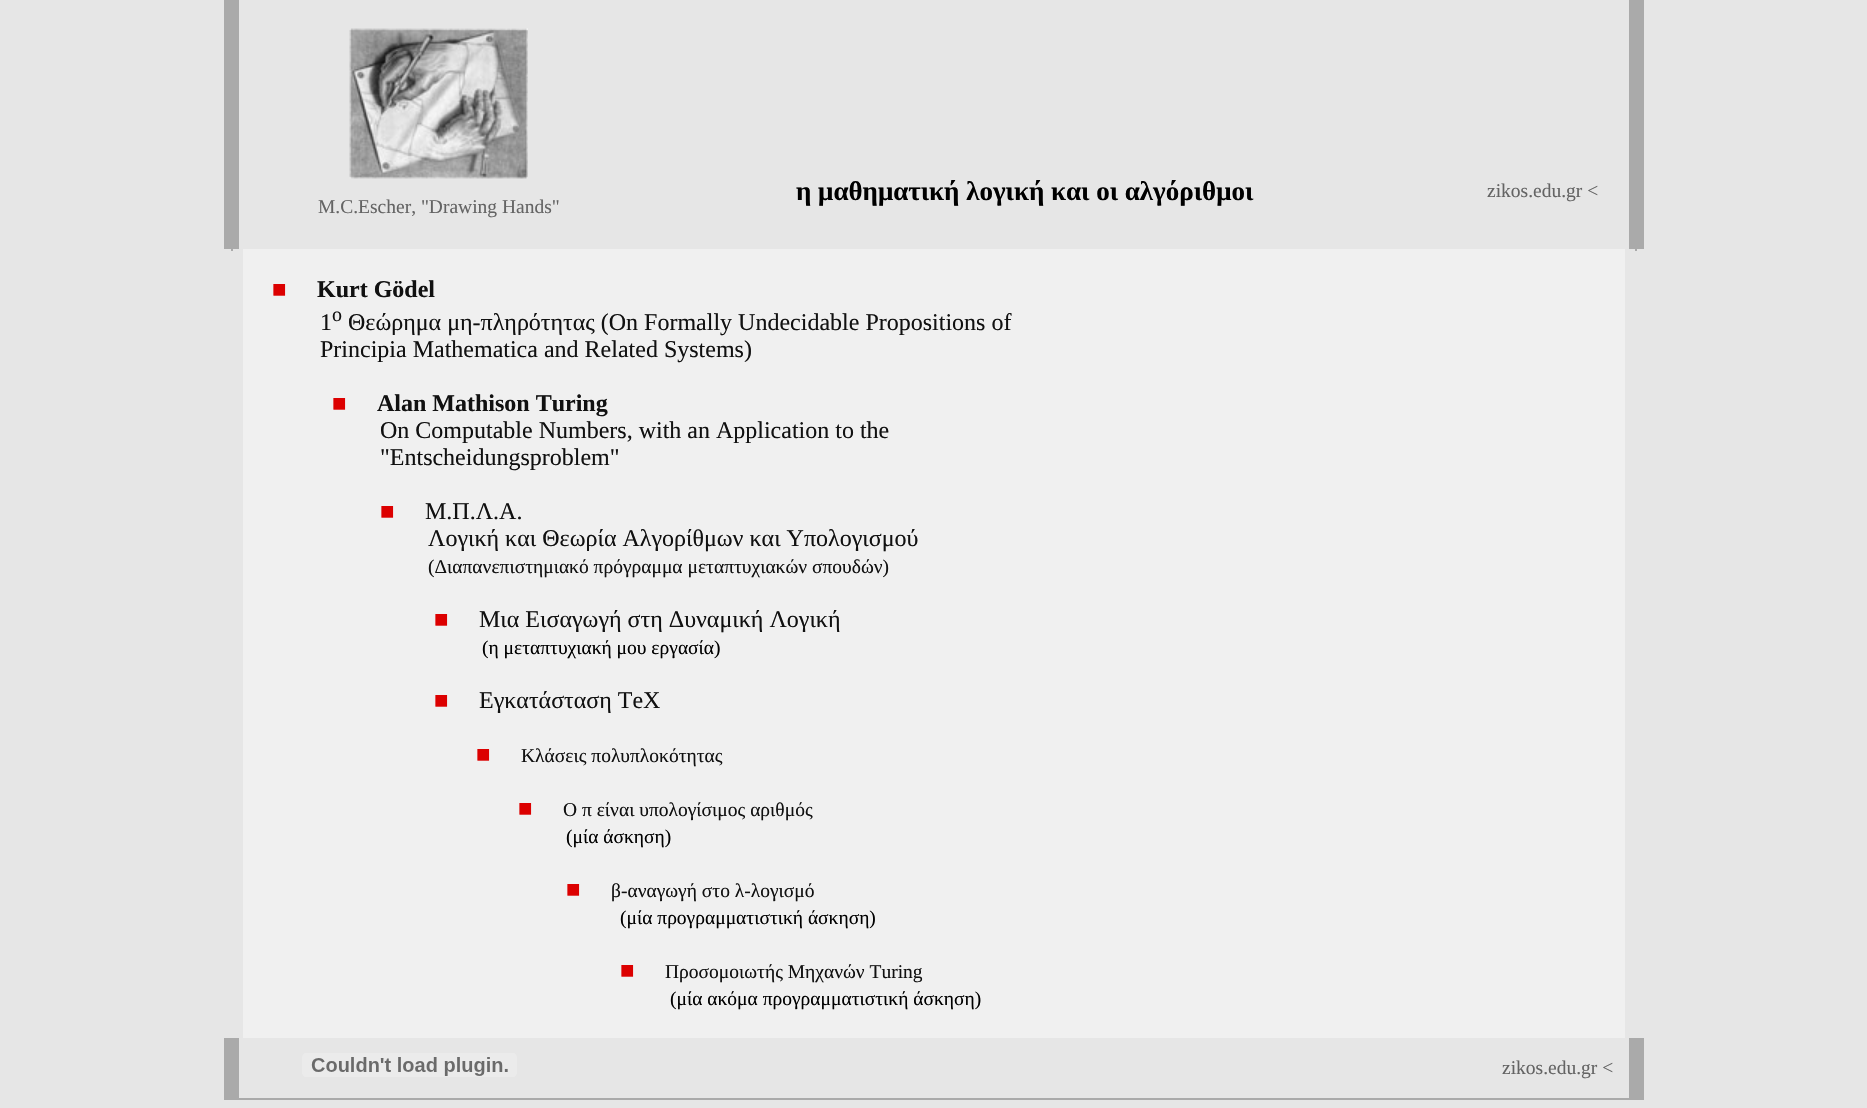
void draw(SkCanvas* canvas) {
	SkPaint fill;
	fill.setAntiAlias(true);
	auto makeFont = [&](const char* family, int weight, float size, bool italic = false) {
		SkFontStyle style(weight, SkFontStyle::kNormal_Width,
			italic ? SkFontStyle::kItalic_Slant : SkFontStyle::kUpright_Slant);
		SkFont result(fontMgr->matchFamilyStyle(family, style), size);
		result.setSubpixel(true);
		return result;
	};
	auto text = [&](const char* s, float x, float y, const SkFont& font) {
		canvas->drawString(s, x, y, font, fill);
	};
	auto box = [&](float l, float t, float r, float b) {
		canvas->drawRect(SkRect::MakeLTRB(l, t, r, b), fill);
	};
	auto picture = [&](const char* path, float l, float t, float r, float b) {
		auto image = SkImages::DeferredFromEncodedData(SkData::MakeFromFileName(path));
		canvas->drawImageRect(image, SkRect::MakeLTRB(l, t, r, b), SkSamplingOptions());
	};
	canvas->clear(0xFFE6E6E6);
	fill.setColor(0xFFAAAAAA);
	box(1629, 0, 1644, 249);
	box(224, 0, 239, 249);
	box(1635, 249, 1637, 251);
	box(231, 249, 233, 251);
	picture("image0.png", 349, 28, 528, 179);
	fill.setColor(0xFFF0F0F0);
	box(243, 249, 1625, 1038);
	fill.setColor(0xFFAAAAAA);
	box(231, 1098, 1637, 1100);
	box(1629, 1038, 1644, 1100);
	box(224, 1038, 239, 1100);
	picture("image1.png", 302, 1053, 517, 1077);
	auto font1 = makeFont("Liberation Serif", 700, 27);
	fill.setColor(0xFF000000);
	text("η μαθηματική λογική και οι αλγόριθμοι", 796, 200, font1);
	auto font2 = makeFont("Liberation Serif", 400, 19.5f);
	fill.setColor(0xFF646464);
	text("zikos.edu.gr <", 1487, 197, font2);
	text("M.C.Escher, \"Drawing Hands\"", 318, 213, font2);
	auto font3 = makeFont("Liberation Serif", 400, 24);
	fill.setColor(0xFFDC0000);
	text("■", 272, 297, font3);
	auto font4 = makeFont("Liberation Serif", 700, 24);
	fill.setColor(0xFF111111);
	text("Kurt Gödel", 317, 297, font4);
	text("1", 320, 330, font3);
	auto font5 = makeFont("Liberation Serif", 400, 20);
	text("o", 332, 321, font5);
	text("Θεώρημα μη-πληρότητας (On Formally Undecidable Propositions of", 348, 330, font3);
	text("Principia Mathematica and Related Systems)", 320, 357, font3);
	fill.setColor(0xFFDC0000);
	text("■", 332, 411, font3);
	fill.setColor(0xFF111111);
	text("Alan Mathison Turing", 377, 411, font4);
	text("On Computable Numbers, with an Application to the", 380, 438, font3);
	text("\"Entscheidungsproblem\"", 380, 465, font3);
	fill.setColor(0xFFDC0000);
	text("■", 380, 519, font3);
	fill.setColor(0xFF111111);
	text("Μ.Π.Λ.Α.", 425, 519, font3);
	text("Λογική και Θεωρία Αλγορίθμων και Υπολογισμού", 428, 546, font3);
	text("(Διαπανεπιστημιακό πρόγραμμα μεταπτυχιακών σπουδών)", 428, 573, font2);
	fill.setColor(0xFFDC0000);
	text("■", 434, 627, font3);
	fill.setColor(0xFF111111);
	text("Μια Εισαγωγή στη Δυναμική Λογική", 479, 627, font3);
	fill.setColor(0xFF000000);
	text("(η μεταπτυχιακή μου εργασία)", 482, 654, font2);
	fill.setColor(0xFFDC0000);
	text("■", 434, 708, font3);
	fill.setColor(0xFF111111);
	text("Εγκατάσταση TeX", 479, 708, font3);
	fill.setColor(0xFFDC0000);
	text("■", 476, 762, font3);
	fill.setColor(0xFF111111);
	text("Κλάσεις πολυπλοκότητας", 521, 762, font2);
	fill.setColor(0xFFDC0000);
	text("■", 518, 816, font3);
	fill.setColor(0xFF111111);
	text("Ο π είναι υπολογίσιμος αριθμός", 563, 816, font2);
	fill.setColor(0xFF000000);
	text("(μία άσκηση)", 566, 843, font2);
	fill.setColor(0xFFDC0000);
	text("■", 566, 897, font3);
	fill.setColor(0xFF111111);
	text("β-αναγωγή στο λ-λογισμό", 611, 897, font2);
	fill.setColor(0xFF000000);
	text("(μία προγραμματιστική άσκηση)", 620, 924, font2);
	fill.setColor(0xFFDC0000);
	text("■", 620, 978, font3);
	fill.setColor(0xFF111111);
	text("Προσομοιωτής Μηχανών Turing", 665, 978, font2);
	fill.setColor(0xFF000000);
	text("(μία ακόμα προγραμματιστική άσκηση)", 670, 1005, font2);
	fill.setColor(0xFF646464);
	text("zikos.edu.gr <", 1502, 1074, font2);
}
